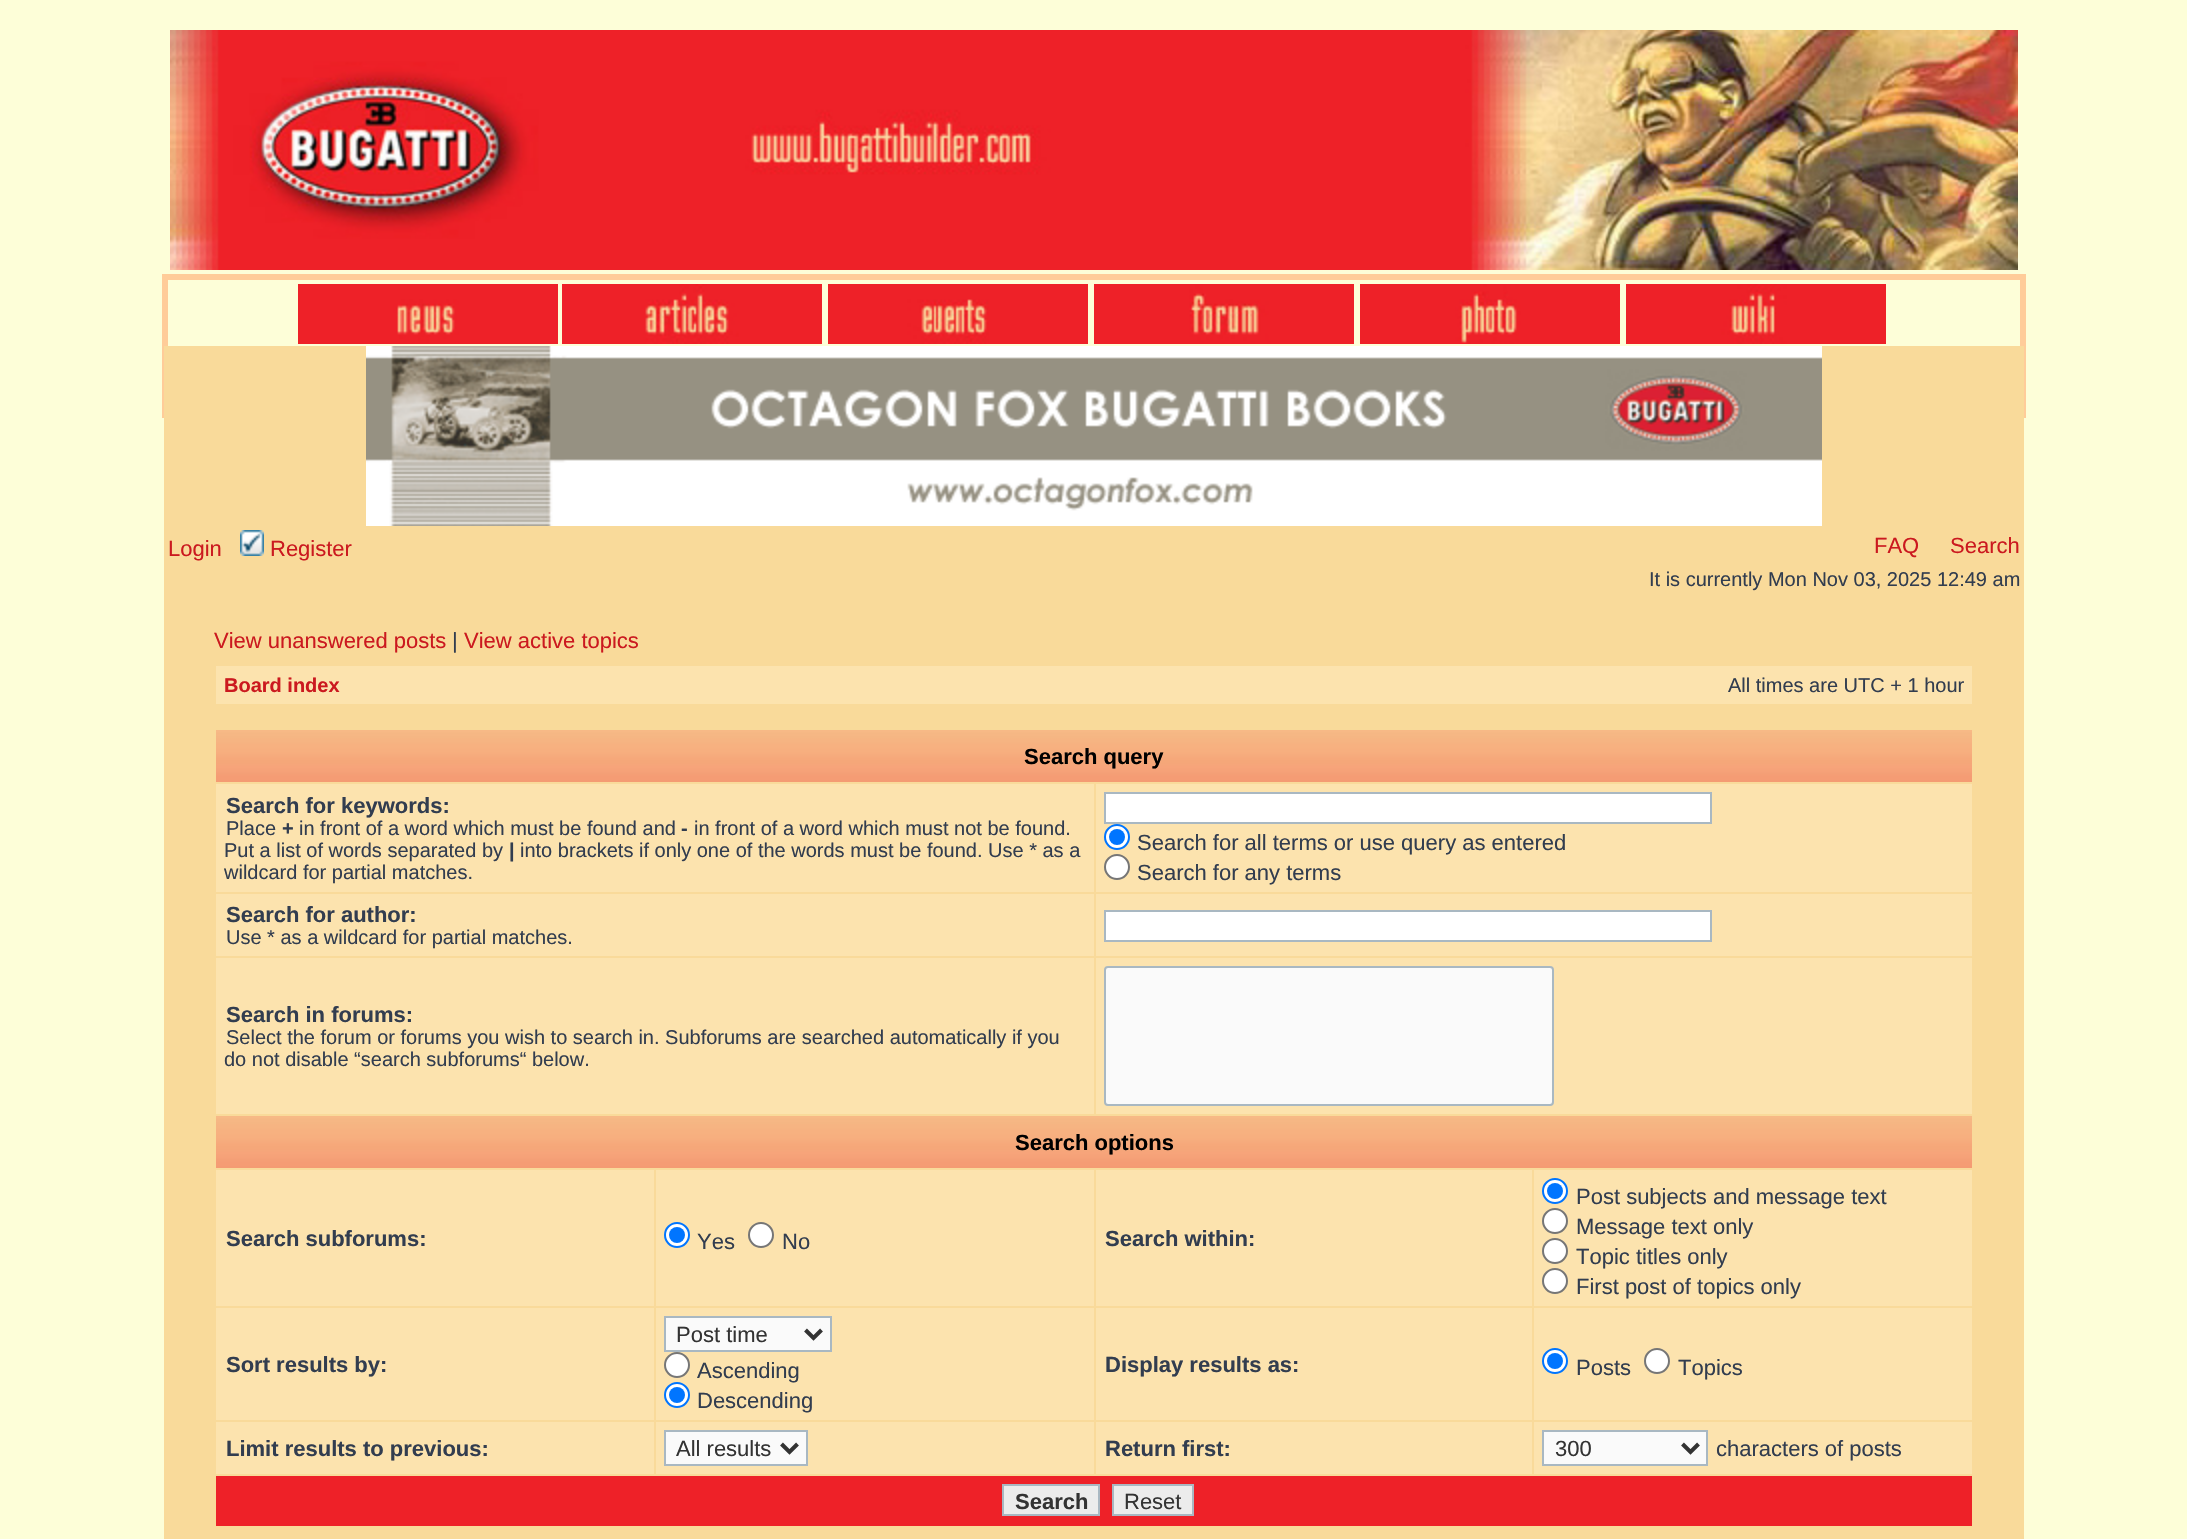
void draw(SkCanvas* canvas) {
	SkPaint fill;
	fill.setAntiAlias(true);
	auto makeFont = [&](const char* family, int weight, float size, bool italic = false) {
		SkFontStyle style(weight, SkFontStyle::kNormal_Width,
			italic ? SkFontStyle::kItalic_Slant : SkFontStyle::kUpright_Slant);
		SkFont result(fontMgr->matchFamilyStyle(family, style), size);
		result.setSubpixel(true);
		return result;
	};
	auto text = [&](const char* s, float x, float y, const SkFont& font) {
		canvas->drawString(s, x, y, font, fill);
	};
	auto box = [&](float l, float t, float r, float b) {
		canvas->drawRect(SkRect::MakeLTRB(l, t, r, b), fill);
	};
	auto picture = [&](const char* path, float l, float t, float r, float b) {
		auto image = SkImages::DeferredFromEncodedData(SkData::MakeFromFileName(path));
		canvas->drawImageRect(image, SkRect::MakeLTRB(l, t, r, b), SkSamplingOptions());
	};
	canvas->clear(0xFFFDFED8);
	picture("image0.png", 170, 30, 2018, 270);
	fill.setStyle(SkPaint::kStroke_Style);
	fill.setStrokeWidth(6);
	fill.setColor(0xFFFFCC99);
	canvas->drawRect(SkRect::MakeLTRB(165, 277, 2023, 415), fill);
	picture("image1.png", 298, 284, 558, 344);
	picture("image2.png", 562, 284, 822, 344);
	picture("image3.png", 828, 284, 1088, 344);
	picture("image4.png", 1094, 284, 1354, 344);
	picture("image5.png", 1360, 284, 1620, 344);
	picture("image6.png", 1626, 284, 1886, 344);
	fill.setStyle(SkPaint::kFill_Style);
	fill.setColor(0xFFF9DA9A);
	box(164, 346, 2024, 1539);
	picture("image7.png", 366, 346, 1822, 526);
	picture("image8.png", 240, 530, 264, 556);
	fill.setColor(0xFFFCE3AE);
	box(216, 666, 1972, 704);
	picture("image9.png", 216, 730, 1972, 782);
	box(216, 784, 1094, 892);
	box(1096, 784, 1972, 892);
	fill.setColor(0xFFFFFFFF);
	canvas->drawRect(SkRect::MakeLTRB(1105, 793, 1711, 823), fill);
	fill.setStyle(SkPaint::kStroke_Style);
	fill.setStrokeWidth(2);
	fill.setColor(0xFFA9B8C2);
	canvas->drawRect(SkRect::MakeLTRB(1105, 793, 1711, 823), fill);
	fill.setStyle(SkPaint::kFill_Style);
	fill.setColor(0xFFFFFFFF);
	canvas->drawCircle(1117, 837, 12, fill);
	fill.setStyle(SkPaint::kStroke_Style);
	fill.setColor(0xFF0075FF);
	canvas->drawCircle(1117, 837, 12, fill);
	fill.setStyle(SkPaint::kFill_Style);
	canvas->drawCircle(1117, 837, 8, fill);
	fill.setColor(0xFFFFFFFF);
	canvas->drawCircle(1117, 867, 12, fill);
	fill.setStyle(SkPaint::kStroke_Style);
	fill.setColor(0xFF767676);
	canvas->drawCircle(1117, 867, 12, fill);
	fill.setStyle(SkPaint::kFill_Style);
	fill.setColor(0xFFFCE3AE);
	box(216, 894, 1094, 956);
	box(1096, 894, 1972, 956);
	fill.setColor(0xFFFFFFFF);
	canvas->drawRect(SkRect::MakeLTRB(1105, 911, 1711, 941), fill);
	fill.setStyle(SkPaint::kStroke_Style);
	fill.setColor(0xFFA9B8C2);
	canvas->drawRect(SkRect::MakeLTRB(1105, 911, 1711, 941), fill);
	fill.setStyle(SkPaint::kFill_Style);
	fill.setColor(0xFFFCE3AE);
	box(216, 958, 1094, 1114);
	box(1096, 958, 1972, 1114);
	fill.setColor(0xFFFAFAFA);
	canvas->drawRoundRect(SkRect::MakeLTRB(1105, 967, 1553, 1105), 3, 3, fill);
	fill.setStyle(SkPaint::kStroke_Style);
	fill.setColor(0xFFA9B8C2);
	canvas->drawRoundRect(SkRect::MakeLTRB(1105, 967, 1553, 1105), 3, 3, fill);
	picture("image9.png", 216, 1116, 1972, 1168);
	fill.setStyle(SkPaint::kFill_Style);
	fill.setColor(0xFFFCE3AE);
	box(216, 1170, 654, 1306);
	box(656, 1170, 1094, 1306);
	fill.setColor(0xFFFFFFFF);
	canvas->drawCircle(677, 1235, 12, fill);
	fill.setStyle(SkPaint::kStroke_Style);
	fill.setColor(0xFF0075FF);
	canvas->drawCircle(677, 1235, 12, fill);
	fill.setStyle(SkPaint::kFill_Style);
	canvas->drawCircle(677, 1235, 8, fill);
	fill.setColor(0xFFFFFFFF);
	canvas->drawCircle(761, 1235, 12, fill);
	fill.setStyle(SkPaint::kStroke_Style);
	fill.setColor(0xFF767676);
	canvas->drawCircle(761, 1235, 12, fill);
	fill.setStyle(SkPaint::kFill_Style);
	fill.setColor(0xFFFCE3AE);
	box(1096, 1170, 1532, 1306);
	box(1534, 1170, 1972, 1306);
	fill.setColor(0xFFFFFFFF);
	canvas->drawCircle(1555, 1191, 12, fill);
	fill.setStyle(SkPaint::kStroke_Style);
	fill.setColor(0xFF0075FF);
	canvas->drawCircle(1555, 1191, 12, fill);
	fill.setStyle(SkPaint::kFill_Style);
	canvas->drawCircle(1555, 1191, 8, fill);
	fill.setColor(0xFFFFFFFF);
	canvas->drawCircle(1555, 1221, 12, fill);
	fill.setStyle(SkPaint::kStroke_Style);
	fill.setColor(0xFF767676);
	canvas->drawCircle(1555, 1221, 12, fill);
	fill.setStyle(SkPaint::kFill_Style);
	fill.setColor(0xFFFFFFFF);
	canvas->drawCircle(1555, 1251, 12, fill);
	fill.setStyle(SkPaint::kStroke_Style);
	fill.setColor(0xFF767676);
	canvas->drawCircle(1555, 1251, 12, fill);
	fill.setStyle(SkPaint::kFill_Style);
	fill.setColor(0xFFFFFFFF);
	canvas->drawCircle(1555, 1281, 12, fill);
	fill.setStyle(SkPaint::kStroke_Style);
	fill.setColor(0xFF767676);
	canvas->drawCircle(1555, 1281, 12, fill);
	fill.setStyle(SkPaint::kFill_Style);
	fill.setColor(0xFFFCE3AE);
	box(216, 1308, 654, 1420);
	box(656, 1308, 1094, 1420);
	fill.setColor(0xFFFAFAFA);
	canvas->drawRect(SkRect::MakeLTRB(665, 1317, 831, 1351), fill);
	fill.setStyle(SkPaint::kStroke_Style);
	fill.setColor(0xFFA9B8C2);
	canvas->drawRect(SkRect::MakeLTRB(665, 1317, 831, 1351), fill);
	fill.setStrokeWidth(4);
	fill.setColor(0xFF333333);
	canvas->drawPath(SkPathBuilder().moveTo(805.5f, 1330).lineTo(813.5f, 1338).lineTo(821.5f, 1330).detach(), fill);
	fill.setStyle(SkPaint::kFill_Style);
	fill.setColor(0xFFFFFFFF);
	canvas->drawCircle(677, 1365, 12, fill);
	fill.setStyle(SkPaint::kStroke_Style);
	fill.setStrokeWidth(2);
	fill.setColor(0xFF767676);
	canvas->drawCircle(677, 1365, 12, fill);
	fill.setStyle(SkPaint::kFill_Style);
	fill.setColor(0xFFFFFFFF);
	canvas->drawCircle(677, 1395, 12, fill);
	fill.setStyle(SkPaint::kStroke_Style);
	fill.setColor(0xFF0075FF);
	canvas->drawCircle(677, 1395, 12, fill);
	fill.setStyle(SkPaint::kFill_Style);
	canvas->drawCircle(677, 1395, 8, fill);
	fill.setColor(0xFFFCE3AE);
	box(1096, 1308, 1532, 1420);
	box(1534, 1308, 1972, 1420);
	fill.setColor(0xFFFFFFFF);
	canvas->drawCircle(1555, 1361, 12, fill);
	fill.setStyle(SkPaint::kStroke_Style);
	fill.setColor(0xFF0075FF);
	canvas->drawCircle(1555, 1361, 12, fill);
	fill.setStyle(SkPaint::kFill_Style);
	canvas->drawCircle(1555, 1361, 8, fill);
	fill.setColor(0xFFFFFFFF);
	canvas->drawCircle(1657, 1361, 12, fill);
	fill.setStyle(SkPaint::kStroke_Style);
	fill.setColor(0xFF767676);
	canvas->drawCircle(1657, 1361, 12, fill);
	fill.setStyle(SkPaint::kFill_Style);
	fill.setColor(0xFFFCE3AE);
	box(216, 1422, 654, 1474);
	box(656, 1422, 1094, 1474);
	fill.setColor(0xFFFAFAFA);
	canvas->drawRect(SkRect::MakeLTRB(665, 1431, 807, 1465), fill);
	fill.setStyle(SkPaint::kStroke_Style);
	fill.setColor(0xFFA9B8C2);
	canvas->drawRect(SkRect::MakeLTRB(665, 1431, 807, 1465), fill);
	fill.setStrokeWidth(4);
	fill.setColor(0xFF333333);
	canvas->drawPath(SkPathBuilder().moveTo(781.5f, 1444).lineTo(789.5f, 1452).lineTo(797.5f, 1444).detach(), fill);
	fill.setStyle(SkPaint::kFill_Style);
	fill.setColor(0xFFFCE3AE);
	box(1096, 1422, 1532, 1474);
	box(1534, 1422, 1972, 1474);
	fill.setColor(0xFFFAFAFA);
	canvas->drawRect(SkRect::MakeLTRB(1543, 1431, 1707, 1465), fill);
	fill.setStyle(SkPaint::kStroke_Style);
	fill.setStrokeWidth(2);
	fill.setColor(0xFFA9B8C2);
	canvas->drawRect(SkRect::MakeLTRB(1543, 1431, 1707, 1465), fill);
	fill.setStrokeWidth(4);
	fill.setColor(0xFF333333);
	canvas->drawPath(SkPathBuilder().moveTo(1682.5f, 1444).lineTo(1690.5f, 1452).lineTo(1698.5f, 1444).detach(), fill);
	fill.setStyle(SkPaint::kFill_Style);
	fill.setColor(0xFFEE2128);
	box(216, 1476, 1972, 1526);
	fill.setColor(0xFFECECEC);
	canvas->drawRect(SkRect::MakeLTRB(1003, 1485, 1099, 1515), fill);
	fill.setStyle(SkPaint::kStroke_Style);
	fill.setStrokeWidth(2);
	fill.setColor(0xFFA9B8C2);
	canvas->drawRect(SkRect::MakeLTRB(1003, 1485, 1099, 1515), fill);
	fill.setStyle(SkPaint::kFill_Style);
	fill.setColor(0xFFECECEC);
	canvas->drawRect(SkRect::MakeLTRB(1113, 1485, 1193, 1515), fill);
	fill.setStyle(SkPaint::kStroke_Style);
	fill.setColor(0xFFA9B8C2);
	canvas->drawRect(SkRect::MakeLTRB(1113, 1485, 1193, 1515), fill);
	auto font1 = makeFont("Liberation Sans", 400, 22);
	fill.setStyle(SkPaint::kFill_Style);
	fill.setColor(0xFFCB191F);
	text("Login", 168, 556, font1);
	text("Register", 270, 556, font1);
	text("FAQ", 1874, 553, font1);
	text("Search", 1950, 553, font1);
	auto font2 = makeFont("Liberation Sans", 400, 20);
	fill.setColor(0xFF323D4F);
	text("It is currently Mon Nov 03, 2025 12:49 am", 1649, 586, font2);
	fill.setColor(0xFFCB191F);
	text("View unanswered posts", 214, 648, font1);
	fill.setColor(0xFF323D4F);
	text("|", 452, 648, font1);
	fill.setColor(0xFFCB191F);
	text("View active topics", 464, 648, font1);
	auto font3 = makeFont("Liberation Sans", 700, 20);
	text("Board index", 224, 692, font3);
	fill.setColor(0xFF323D4F);
	text("All times are UTC + 1 hour", 1728, 692, font2);
	auto font4 = makeFont("Liberation Sans", 700, 22);
	fill.setColor(0xFF000000);
	text("Search query", 1024, 764, font4);
	fill.setColor(0xFF323D4F);
	text("Search for keywords:", 226, 813, font4);
	text("Place", 226, 835, font2);
	text("+", 282, 835, font3);
	text("in front of a word which must be found and", 299, 835, font2);
	text("-", 681, 835, font3);
	text("in front of a word which must not be found.", 694, 835, font2);
	text("Put a list of words separated by", 224, 857, font2);
	text("|", 509, 857, font3);
	text("into brackets if only one of the words must be found. Use * as a", 520, 857, font2);
	text("wildcard for partial matches.", 224, 879, font2);
	text("Search for all terms or use query as entered", 1137, 850, font1);
	text("Search for any terms", 1137, 880, font1);
	text("Search for author:", 226, 922, font4);
	text("Use * as a wildcard for partial matches.", 226, 944, font2);
	text("Search in forums:", 226, 1022, font4);
	text("Select the forum or forums you wish to search in. Subforums are searched automatically if you", 226, 1044, font2);
	text("do not disable “search subforums“ below.", 224, 1066, font2);
	fill.setColor(0xFF000000);
	text("Search options", 1015, 1150, font4);
	fill.setColor(0xFF323D4F);
	text("Search subforums:", 226, 1246, font4);
	text("Yes", 697, 1249, font1);
	text("No", 782, 1249, font1);
	text("Search within:", 1105, 1246, font4);
	text("Post subjects and message text", 1576, 1204, font1);
	text("Message text only", 1576, 1234, font1);
	text("Topic titles only", 1576, 1264, font1);
	text("First post of topics only", 1576, 1294, font1);
	text("Sort results by:", 226, 1372, font4);
	fill.setColor(0xFF333333);
	text("Post time", 676, 1342, font1);
	fill.setColor(0xFF323D4F);
	text("Ascending", 697, 1378, font1);
	text("Descending", 697, 1408, font1);
	text("Display results as:", 1105, 1372, font4);
	text("Posts", 1576, 1375, font1);
	text("Topics", 1678, 1375, font1);
	text("Limit results to previous:", 226, 1456, font4);
	fill.setColor(0xFF333333);
	text("All results", 676, 1456, font1);
	fill.setColor(0xFF323D4F);
	text("Return first:", 1105, 1456, font4);
	fill.setColor(0xFF333333);
	text("300", 1555, 1456, font1);
	fill.setColor(0xFF323D4F);
	text("characters of posts", 1716, 1456, font1);
	fill.setColor(0xFF333333);
	text("Search", 1015, 1509, font4);
	text("Reset", 1124, 1509, font1);
}
